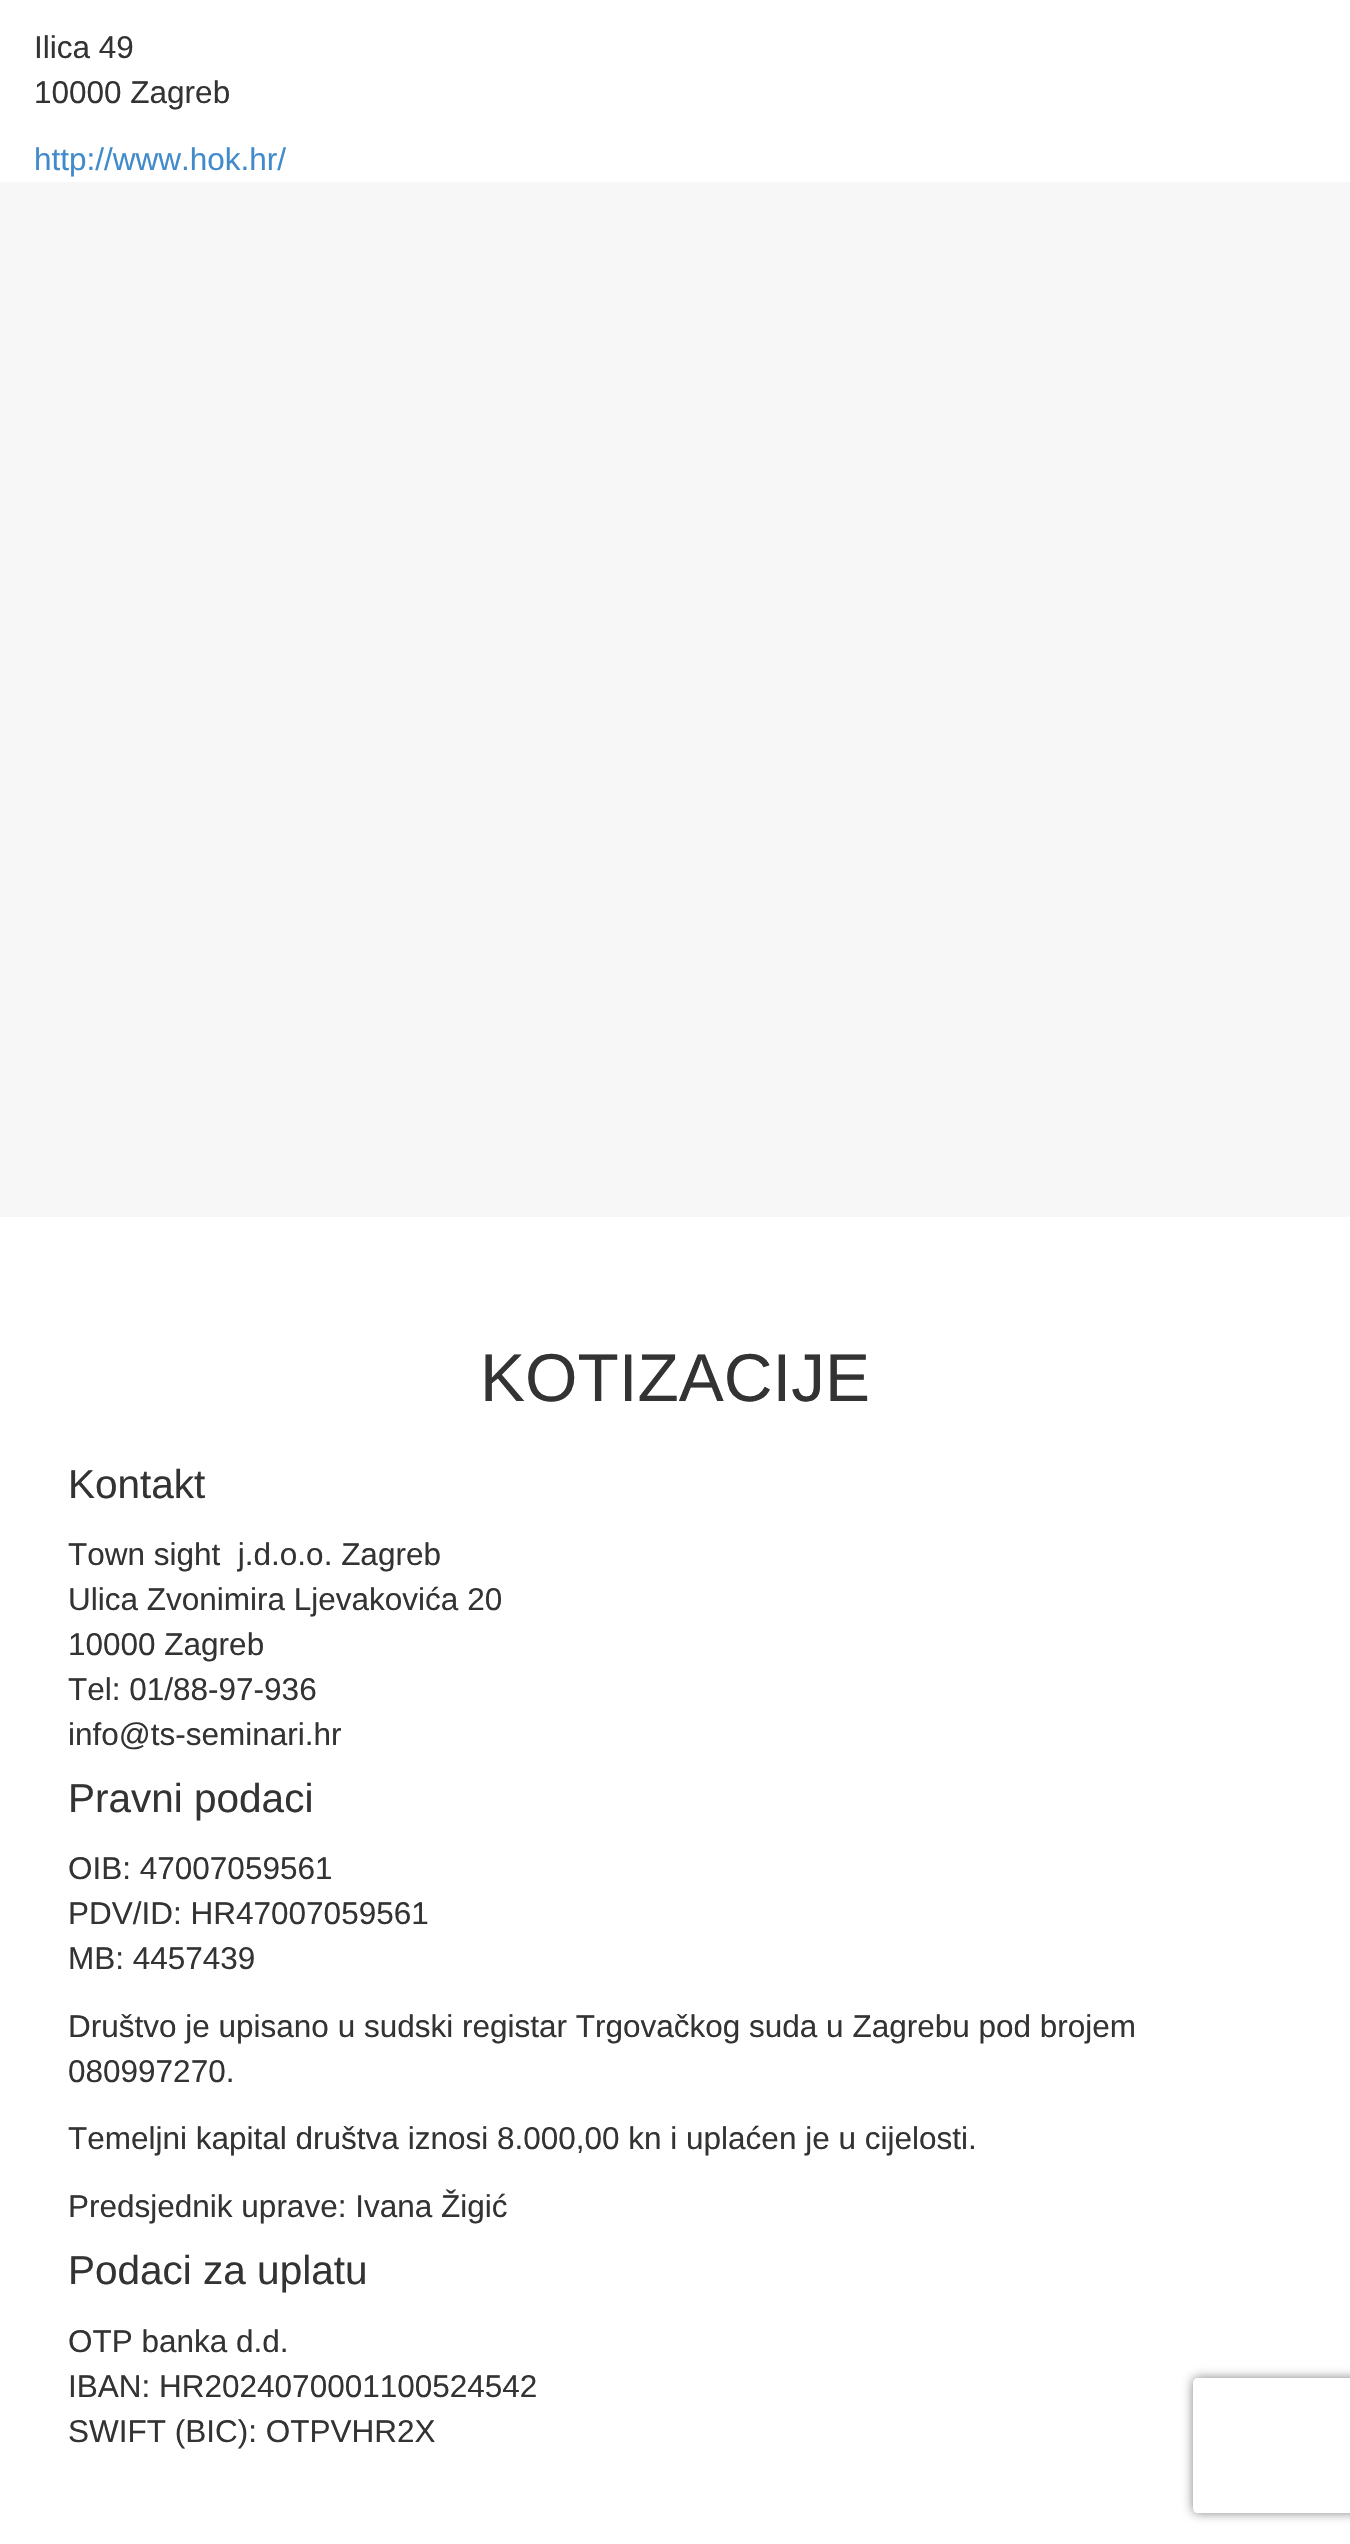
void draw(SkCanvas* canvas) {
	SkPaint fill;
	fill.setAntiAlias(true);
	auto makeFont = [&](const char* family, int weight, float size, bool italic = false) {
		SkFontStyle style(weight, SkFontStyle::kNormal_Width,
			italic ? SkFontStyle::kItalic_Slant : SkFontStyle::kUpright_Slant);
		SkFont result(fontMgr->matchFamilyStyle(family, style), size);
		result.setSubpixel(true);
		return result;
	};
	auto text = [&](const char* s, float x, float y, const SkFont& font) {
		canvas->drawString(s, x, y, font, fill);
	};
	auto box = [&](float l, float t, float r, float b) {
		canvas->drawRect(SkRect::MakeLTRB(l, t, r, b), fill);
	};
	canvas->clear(0xFFFFFFFF);
	fill.setColor(0xFFF7F7F7);
	box(0, 182, 1350, 1217);
	canvas->save();
	canvas->clipPath(SkPathBuilder(SkPathFillType::kEvenOdd).moveTo(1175, 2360).lineTo(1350, 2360).lineTo(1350, 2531).lineTo(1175, 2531).close().moveTo(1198, 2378).lineTo(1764, 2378).cubicTo(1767, 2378, 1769, 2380, 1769, 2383).lineTo(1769, 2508).cubicTo(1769, 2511, 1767, 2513, 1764, 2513).lineTo(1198, 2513).cubicTo(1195, 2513, 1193, 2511, 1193, 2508).lineTo(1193, 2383).cubicTo(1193, 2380, 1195, 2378, 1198, 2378).close().detach(), true);
	fill.setColor(0xFF808080);
	fill.setMaskFilter(SkMaskFilter::MakeBlur(kNormal_SkBlurStyle, 5.5f));
	canvas->drawRoundRect(SkRect::MakeLTRB(1193, 2378, 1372, 2513), 5, 5, fill);
	fill.setMaskFilter(nullptr);
	canvas->restore();
	auto font1 = makeFont("Liberation Sans", 400, 31.5f);
	fill.setColor(0xFF333333);
	text("Ilica 49", 34, 58, font1);
	text("10000 Zagreb", 34, 103, font1);
	fill.setColor(0xFF428BCA);
	text("http://www.hok.hr/", 34, 170, font1);
	auto font2 = makeFont("Liberation Sans", 400, 67.5f);
	fill.setColor(0xFF333333);
	text("KOTIZACIJE", 480, 1401, font2);
	auto font3 = makeFont("Liberation Sans", 400, 40.5f);
	text("Kontakt", 68, 1498, font3);
	text("Town sight  j.d.o.o. Zagreb", 68, 1565, font1);
	text("Ulica Zvonimira Ljevakovića 20", 68, 1610, font1);
	text("10000 Zagreb", 68, 1655, font1);
	text("Tel: 01/88-97-936", 68, 1700, font1);
	text("info@ts-seminari.hr", 68, 1745, font1);
	text("Pravni podaci", 68, 1812, font3);
	text("OIB: 47007059561", 68, 1879, font1);
	text("PDV/ID: HR47007059561", 68, 1924, font1);
	text("MB: 4457439", 68, 1969, font1);
	text("Društvo je upisano u sudski registar Trgovačkog suda u Zagrebu pod brojem", 68, 2037, font1);
	text("080997270.", 68, 2082, font1);
	text("Temeljni kapital društva iznosi 8.000,00 kn i uplaćen je u cijelosti.", 68, 2149, font1);
	text("Predsjednik uprave: Ivana Žigić", 68, 2217, font1);
	text("Podaci za uplatu", 68, 2284, font3);
	text("OTP banka d.d.", 68, 2352, font1);
	text("IBAN: HR2024070001100524542", 68, 2397, font1);
	text("SWIFT (BIC): OTPVHR2X", 68, 2442, font1);
}
